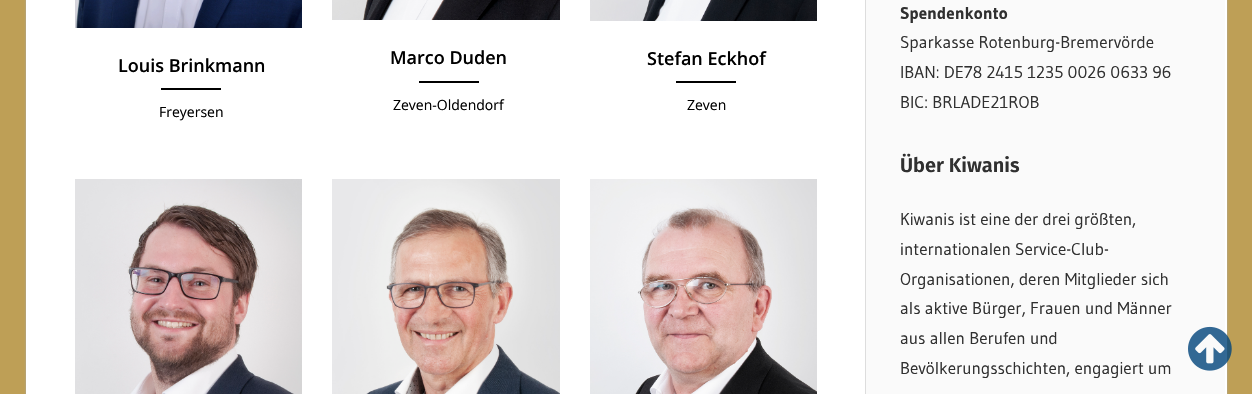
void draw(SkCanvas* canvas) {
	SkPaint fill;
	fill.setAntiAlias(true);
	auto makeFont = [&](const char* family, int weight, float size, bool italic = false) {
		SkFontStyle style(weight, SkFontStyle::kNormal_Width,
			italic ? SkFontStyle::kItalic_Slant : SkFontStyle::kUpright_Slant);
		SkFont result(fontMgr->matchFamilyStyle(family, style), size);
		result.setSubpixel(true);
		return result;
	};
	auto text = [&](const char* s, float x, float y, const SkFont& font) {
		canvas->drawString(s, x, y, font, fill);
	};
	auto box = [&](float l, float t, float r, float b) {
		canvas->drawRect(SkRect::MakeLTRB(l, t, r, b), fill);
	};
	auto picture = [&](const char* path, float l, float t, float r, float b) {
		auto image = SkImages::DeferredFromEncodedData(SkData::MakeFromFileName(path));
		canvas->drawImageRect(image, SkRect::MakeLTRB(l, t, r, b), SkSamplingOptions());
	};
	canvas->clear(0xFFBE9F56);
	fill.setColor(0xFFAAAAAA);
	fill.setMaskFilter(SkMaskFilter::MakeBlur(kNormal_SkBlurStyle, 1));
	canvas->drawRect(SkRect::MakeLTRB(26, -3, 1227, 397), fill);
	fill.setMaskFilter(nullptr);
	fill.setColor(0xFFFFFFFF);
	box(26, 0, 1227, 394);
	picture("image0.png", 75, 0, 302, 28);
	fill.setColor(0xFF000000);
	box(161, 88, 221, 90);
	picture("image1.png", 332, 0, 560, 20);
	box(419, 81, 479, 83);
	picture("image2.png", 590, 0, 817, 21);
	box(676, 81, 736, 83);
	picture("image3.png", 75, 179, 302, 394);
	picture("image4.png", 332, 179, 560, 394);
	picture("image5.png", 590, 179, 817, 394);
	fill.setColor(0xFFFAFAFA);
	box(866, 0, 1225, 394);
	fill.setColor(0xFFDDDDDD);
	box(865, 0, 866, 394);
	picture("image6.png", 1188, 326, 1232, 371);
	auto font1 = makeFont("Open Sans", 600, 18);
	fill.setColor(0xFF000000);
	text("Louis Brinkmann", 118, 72, font1);
	auto font2 = makeFont("Open Sans", 400, 14);
	text("Freyersen", 159, 117, font2);
	text("Marco Duden", 390, 64, font1);
	text("Zeven-Oldendorf", 393, 110, font2);
	text("Stefan Eckhof", 647, 65, font1);
	text("Zeven", 687, 110, font2);
	auto font3 = makeFont("Gudea", 700, 17);
	fill.setColor(0xFF303030);
	text("Spendenkonto", 900, 19, font3);
	auto font4 = makeFont("Gudea", 400, 17);
	text("Sparkasse Rotenburg-Bremervörde", 900, 48, font4);
	text("IBAN: DE78 2415 1235 0026 0633 96", 900, 78, font4);
	text("BIC: BRLADE21ROB", 900, 108, font4);
	auto font5 = makeFont("Fira Sans", 600, 20);
	text("Über Kiwanis", 900, 172, font5);
	text("Kiwanis ist eine der drei größten,", 900, 225, font4);
	text("internationalen Service-Club-", 900, 255, font4);
	text("Organisationen, deren Mitglieder sich", 900, 285, font4);
	text("als aktive Bürger, Frauen und Männer", 900, 314, font4);
	text("aus allen Berufen und", 900, 344, font4);
	text("Bevölkerungsschichten, engagiert um", 900, 374, font4);
}
